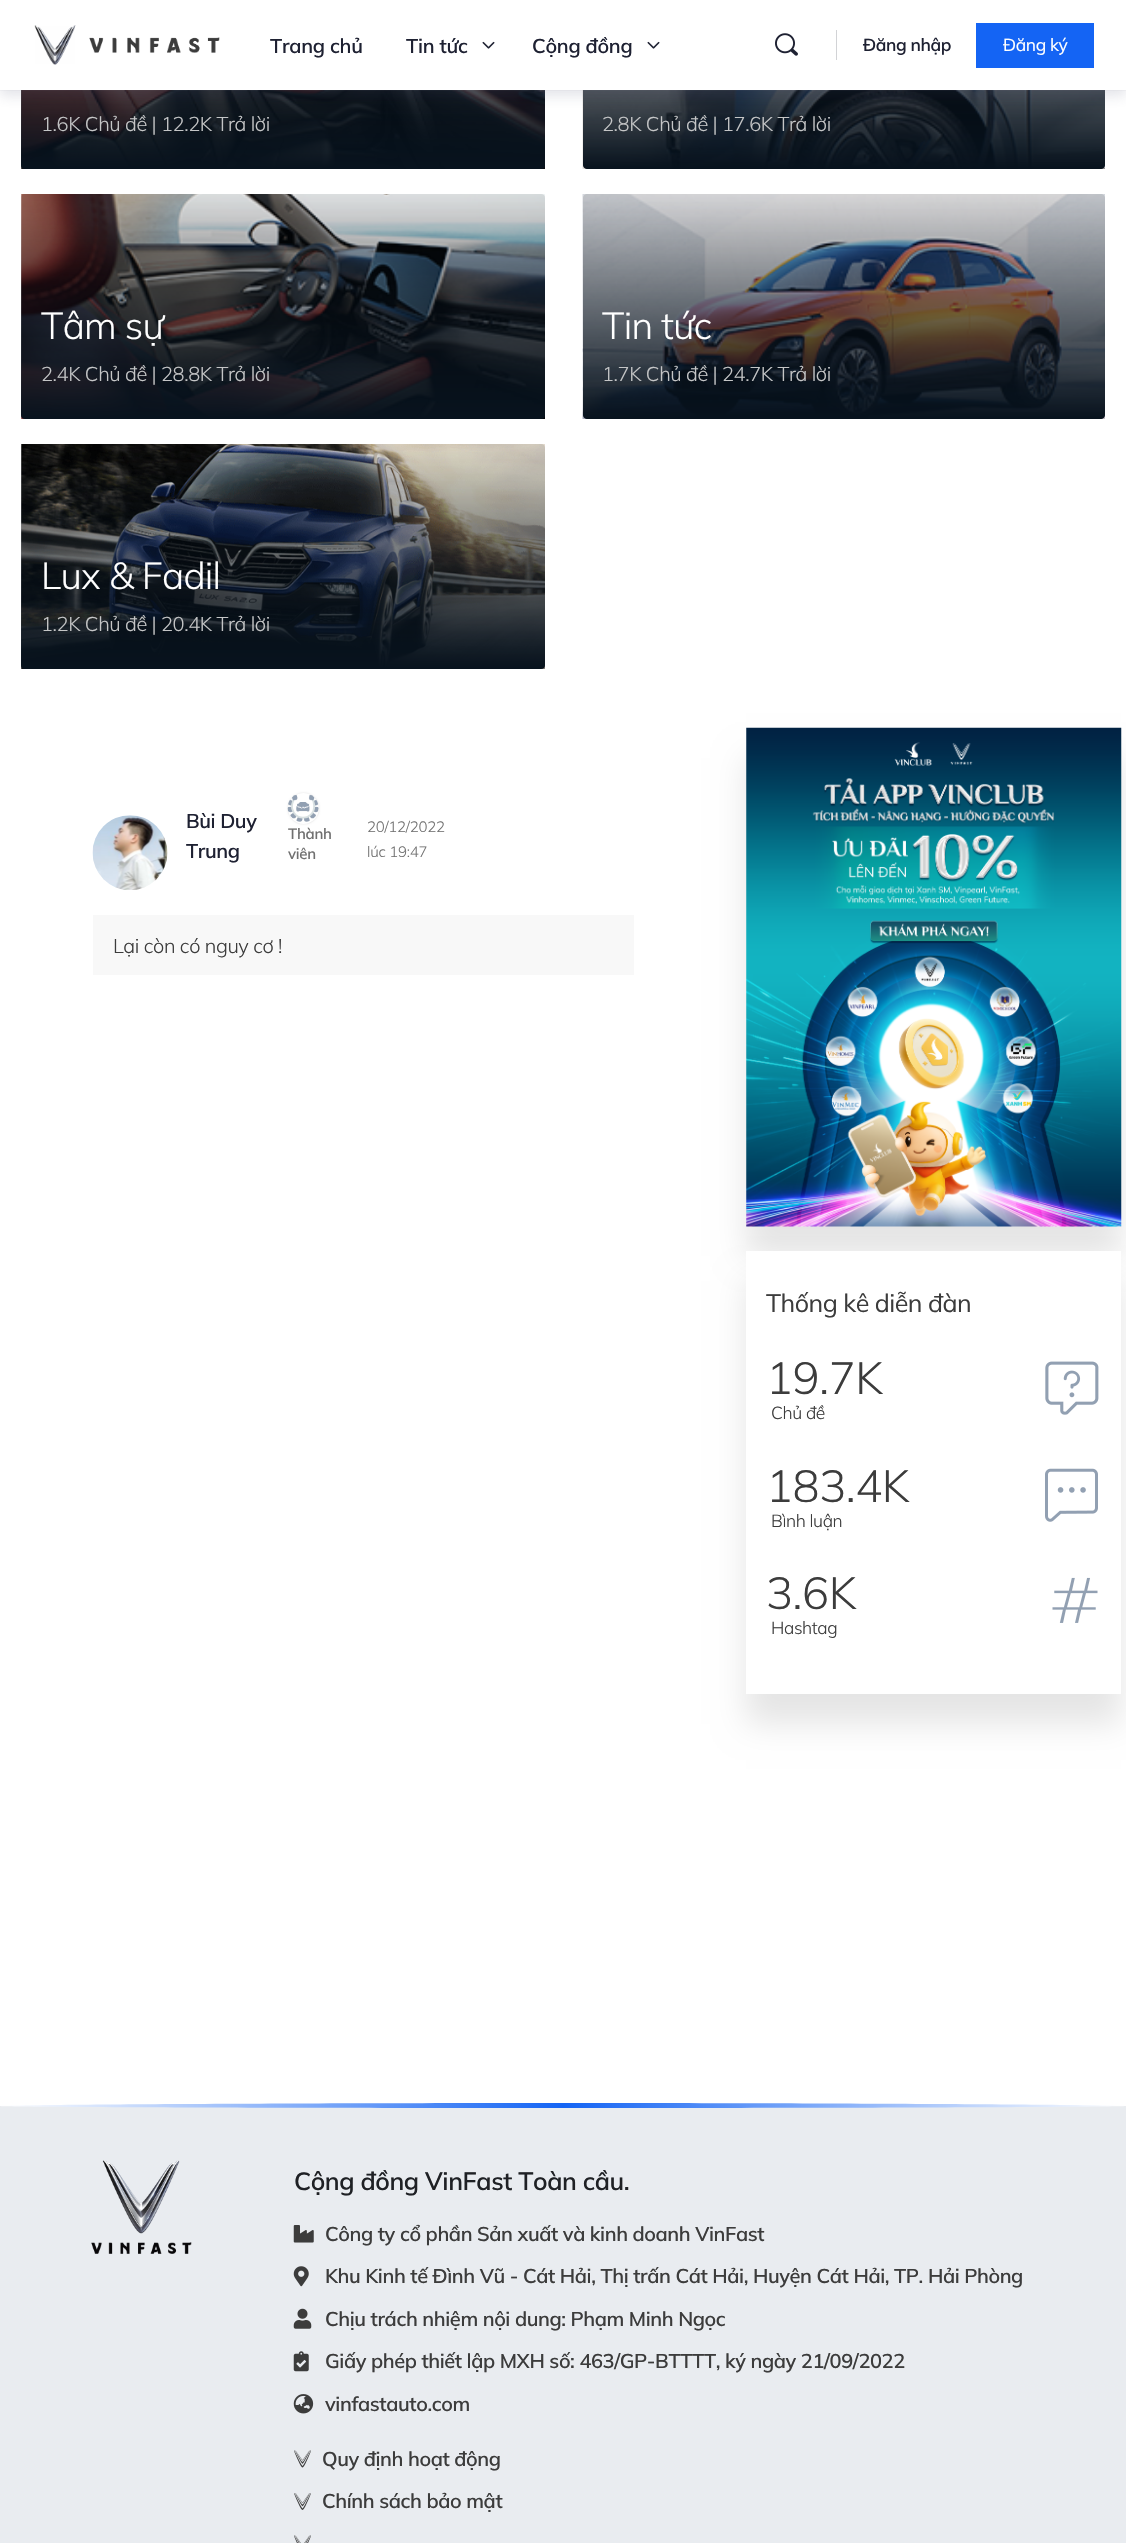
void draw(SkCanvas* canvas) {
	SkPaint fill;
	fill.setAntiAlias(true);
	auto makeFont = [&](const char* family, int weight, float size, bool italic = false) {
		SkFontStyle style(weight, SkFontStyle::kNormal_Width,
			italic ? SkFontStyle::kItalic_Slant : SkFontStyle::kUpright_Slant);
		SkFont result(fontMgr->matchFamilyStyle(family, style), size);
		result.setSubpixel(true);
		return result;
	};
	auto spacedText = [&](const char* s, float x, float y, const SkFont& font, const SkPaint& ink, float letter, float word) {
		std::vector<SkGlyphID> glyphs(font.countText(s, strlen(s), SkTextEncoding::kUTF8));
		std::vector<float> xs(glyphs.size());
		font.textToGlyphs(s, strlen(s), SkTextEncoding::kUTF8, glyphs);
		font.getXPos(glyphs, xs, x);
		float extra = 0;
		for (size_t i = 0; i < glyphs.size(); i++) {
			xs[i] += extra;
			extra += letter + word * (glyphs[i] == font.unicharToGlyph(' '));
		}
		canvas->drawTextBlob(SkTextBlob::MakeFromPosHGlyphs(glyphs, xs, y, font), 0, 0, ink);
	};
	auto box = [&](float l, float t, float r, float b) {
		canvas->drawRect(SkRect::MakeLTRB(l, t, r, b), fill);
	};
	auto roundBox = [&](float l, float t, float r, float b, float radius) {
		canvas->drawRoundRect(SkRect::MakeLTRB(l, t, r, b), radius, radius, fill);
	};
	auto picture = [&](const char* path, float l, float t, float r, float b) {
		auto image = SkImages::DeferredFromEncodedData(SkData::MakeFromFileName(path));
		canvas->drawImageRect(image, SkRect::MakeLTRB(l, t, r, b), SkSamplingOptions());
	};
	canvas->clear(0xFFFFFFFF);
	picture("image3.png", 21, 90, 545, 169);
	fill.setColor(0x1A000000);
	roundBox(21, -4, 545, 169, 4);
	{
		const SkColor colors[] = {0x0007121D, 0xFF07121D};
		const float stops[] = {0, 1};
		const SkPoint ends[] = {{283, -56}, {283, 169}};
		fill.setShader(SkGradientShader::MakeLinear(ends, colors, stops, 2, SkTileMode::kClamp));
		fill.setAlpha(255);
	}
	roundBox(21, -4, 545, 169, 4);
	picture("image4.png", 582, 90, 1105, 169);
	fill.setShader(nullptr);
	fill.setColor(0x2641476C);
	fill.setMaskFilter(SkMaskFilter::MakeBlur(kNormal_SkBlurStyle, 6));
	canvas->drawRect(SkRect::MakeLTRB(0, 6, 1126, 96), fill);
	fill.setMaskFilter(nullptr);
	fill.setColor(0x0D8B8D9D);
	box(0, 90, 1126, 91);
	fill.setColor(0xFFFFFFFF);
	box(0, 0, 1126, 90);
	picture("image0.png", 34, 25, 220, 65);
	picture("image1.png", 482, 41, 495, 49);
	picture("image1.png", 647, 41, 660, 49);
	picture("image2.png", 775, 33, 798, 56);
	fill.setColor(0xFFD2D3D6);
	box(836, 30, 837, 60);
	fill.setColor(0xFF1464F4);
	box(976, 23, 1094, 68);
	picture("image5.png", 21, 194, 545, 419);
	fill.setColor(0x1A000000);
	roundBox(21, 194, 545, 419, 4);
	{
		const SkColor colors[] = {0x0007121D, 0xFF07121D};
		const float stops[] = {0, 1};
		const SkPoint ends[] = {{283, 194}, {283, 419}};
		fill.setShader(SkGradientShader::MakeLinear(ends, colors, stops, 2, SkTileMode::kClamp));
		fill.setAlpha(255);
	}
	roundBox(21, 194, 545, 419, 4);
	picture("image6.png", 582, 194, 1105, 419);
	picture("image7.png", 21, 444, 545, 669);
	fill.setShader(nullptr);
	fill.setColor(0x1A000000);
	roundBox(21, 444, 545, 669, 4);
	{
		const SkColor colors[] = {0x0007121D, 0xFF07121D};
		const float stops[] = {0, 1};
		const SkPoint ends[] = {{283, 444}, {283, 669}};
		fill.setShader(SkGradientShader::MakeLinear(ends, colors, stops, 2, SkTileMode::kClamp));
		fill.setAlpha(255);
	}
	roundBox(21, 444, 545, 669, 4);
	picture("image8.png", 92, 815, 168, 890);
	canvas->save();
	canvas->clipPath(SkPathBuilder(SkPathFillType::kEvenOdd).moveTo(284, 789).lineTo(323, 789).lineTo(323, 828).lineTo(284, 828).close().moveTo(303.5f, 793).cubicTo(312, 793, 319, 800, 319, 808.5f).cubicTo(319, 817, 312, 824, 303.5f, 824).cubicTo(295, 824, 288, 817, 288, 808.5f).cubicTo(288, 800, 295, 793, 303.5f, 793).close().detach(), true);
	fill.setShader(nullptr);
	fill.setColor(0x21000000);
	fill.setMaskFilter(SkMaskFilter::MakeBlur(kNormal_SkBlurStyle, 1));
	canvas->drawRoundRect(SkRect::MakeLTRB(288, 793, 319, 824), 15.5f, 15.5f, fill);
	fill.setMaskFilter(nullptr);
	canvas->restore();
	picture("image9.png", 287, 795, 319, 822);
	fill.setColor(0xFFF8F8F8);
	box(93, 915, 634, 975);
	fill.setColor(0x1A000000);
	fill.setMaskFilter(SkMaskFilter::MakeBlur(kNormal_SkBlurStyle, 15));
	canvas->drawRect(SkRect::MakeLTRB(746, 758, 1121, 1256), fill);
	fill.setMaskFilter(nullptr);
	picture("image10.png", 746, 727, 1122, 1227);
	fill.setMaskFilter(SkMaskFilter::MakeBlur(kNormal_SkBlurStyle, 15));
	canvas->drawRect(SkRect::MakeLTRB(746, 1281, 1121, 1724), fill);
	fill.setMaskFilter(nullptr);
	fill.setColor(0xFFFFFFFF);
	box(746, 1251, 1121, 1694);
	picture("image11.png", 1045, 1361, 1099, 1415);
	picture("image12.png", 1045, 1468, 1098, 1522);
	picture("image13.png", 1052, 1577, 1098, 1623);
	fill.setColor(0xFFE9ECF0);
	box(0, 2106, 1126, 2543);
	{
		const SkColor colors[] = {0xFF1464F4, 0xFFFFFFFF};
		const float stops[] = {0, 1};
		fill.setShader(SkGradientShader::MakeRadial({563, 2106}, 563, colors, stops, 2, SkTileMode::kClamp));
		fill.setAlpha(255);
	}
	canvas->drawPath(SkPathBuilder().moveTo(563, 2103).cubicTo(868, 2103, 1117, 2105, 1126, 2106).cubicTo(1117, 2107, 868, 2108, 563, 2108).cubicTo(252, 2108, 0, 2107, 0, 2106).cubicTo(0, 2105, 252, 2103, 563, 2103).close().detach(), fill);
	picture("image14.png", 91, 2160, 192, 2254);
	picture("image15.png", 293, 2225, 314, 2243);
	picture("image16.png", 293, 2266, 309, 2287);
	picture("image17.png", 293, 2308, 312, 2329);
	picture("image18.png", 293, 2351, 309, 2372);
	picture("image19.png", 293, 2394, 314, 2414);
	picture("image20.png", 294, 2450, 311, 2468);
	picture("image21.png", 294, 2493, 311, 2510);
	picture("image22.png", 294, 2535, 311, 2543);
	auto font1 = makeFont("Mulish", 600, 20);
	fill.setShader(nullptr);
	fill.setColor(0xFF1E2132);
	spacedText("Trang chủ", 270, 53, font1, fill, -0.25f, 0);
	spacedText("Tin tức", 406, 53, font1, fill, -0.25f, 0);
	spacedText("Cộng đồng", 532, 53, font1, fill, -0.25f, 0);
	auto font2 = makeFont("Mulish", 600, 17.5f);
	spacedText("Đăng nhập", 863, 51, font2, fill, -0.4f, 0);
	auto font3 = makeFont("Mulish", 400, 17.5f);
	fill.setColor(0xFFFFFFFF);
	spacedText("Đăng ký", 1003, 51, font3, fill, -0.4f, 0);
	auto font4 = makeFont("Mulish", 300, 20);
	fill.setColor(0xFFC5C6C7);
	spacedText("1.6K Chủ đề | 12.2K Trả lời", 41, 131, font4, fill, -0.4f, 0);
	spacedText("2.8K Chủ đề | 17.6K Trả lời", 602, 131, font4, fill, -0.4f, 0);
	auto font5 = makeFont("Mulish", 300, 37.5f);
	fill.setColor(0xFFFFFFFF);
	spacedText("Tâm sự", 41, 339, font5, fill, -0.75f, 0);
	fill.setColor(0xFFC5C6C7);
	spacedText("2.4K Chủ đề | 28.8K Trả lời", 41, 381, font4, fill, -0.4f, 0);
	fill.setColor(0xFFFFFFFF);
	spacedText("Tin tức", 602, 339, font5, fill, -0.75f, 0);
	fill.setColor(0xFFC5C6C7);
	spacedText("1.7K Chủ đề | 24.7K Trả lời", 602, 381, font4, fill, -0.4f, 0);
	fill.setColor(0xFFFFFFFF);
	spacedText("Lux & Fadil", 41, 589, font5, fill, -0.75f, 0);
	fill.setColor(0xFFC5C6C7);
	spacedText("1.2K Chủ đề | 20.4K Trả lời", 41, 631, font4, fill, -0.4f, 0);
	fill.setColor(0xFF1E2132);
	spacedText("Bùi Duy", 186, 828, font1, fill, -0.4f, 0);
	spacedText("Trung", 186, 858, font1, fill, -0.4f, 0);
	auto font6 = makeFont("Mulish", 600, 15);
	fill.setColor(0xFF707070);
	spacedText("Thành", 288, 839, font6, fill, -0.25f, 0);
	spacedText("viên", 288, 859, font6, fill, -0.25f, 0);
	auto font7 = makeFont("Mulish", 300, 15);
	spacedText("20/12/2022", 367, 832, font7, fill, -0.25f, 0);
	spacedText("lúc 19:47", 367, 857, font7, fill, -0.25f, 0);
	fill.setColor(0xFF3C3C3C);
	spacedText("Lại còn có nguy cơ !", 113, 953, font4, fill, -0.4f, 0);
	auto font8 = makeFont("Mulish", 400, 25);
	spacedText("Thống kê diễn đàn", 766, 1312, font8, fill, -0.5f, 0);
	auto font9 = makeFont("Mulish", 300, 45);
	spacedText("19.7K", 766, 1394, font9, fill, -0.4f, 0);
	auto font10 = makeFont("Mulish", 300, 17.5f);
	spacedText("Chủ đề", 771, 1419, font10, fill, -0.4f, 0);
	spacedText("183.4K", 766, 1502, font9, fill, -0.4f, 0);
	spacedText("Bình luận", 771, 1527, font10, fill, -0.4f, 0);
	spacedText("3.6K", 766, 1609, font9, fill, -0.4f, 0);
	spacedText("Hashtag", 771, 1634, font10, fill, -0.4f, 0);
	auto font11 = makeFont("Mulish", 600, 25);
	fill.setColor(0xFF1F2125);
	spacedText("Cộng đồng VinFast Toàn cầu.", 294, 2190, font11, fill, -0.4f, 0);
	fill.setColor(0xFF3C3C3C);
	spacedText("Công ty cổ phần Sản xuất và kinh doanh VinFast", 325, 2241, font1, fill, -0.4f, 0);
	spacedText("Khu Kinh tế Đình Vũ - Cát Hải, Thị trấn Cát Hải, Huyện Cát Hải, TP. Hải Phòng", 325, 2283, font1, fill, -0.4f, 0);
	spacedText("Chịu trách nhiệm nội dung: Phạm Minh Ngọc", 325, 2326, font1, fill, -0.4f, 0);
	spacedText("Giấy phép thiết lập MXH số: 463/GP-BTTTT, ký ngày 21/09/2022", 325, 2368, font1, fill, -0.4f, 0);
	spacedText("vinfastauto.com", 325, 2411, font1, fill, -0.4f, 0);
	spacedText("Quy định hoạt động", 322, 2466, font1, fill, -0.4f, 0);
	spacedText("Chính sách bảo mật", 322, 2508, font1, fill, -0.4f, 0);
}
